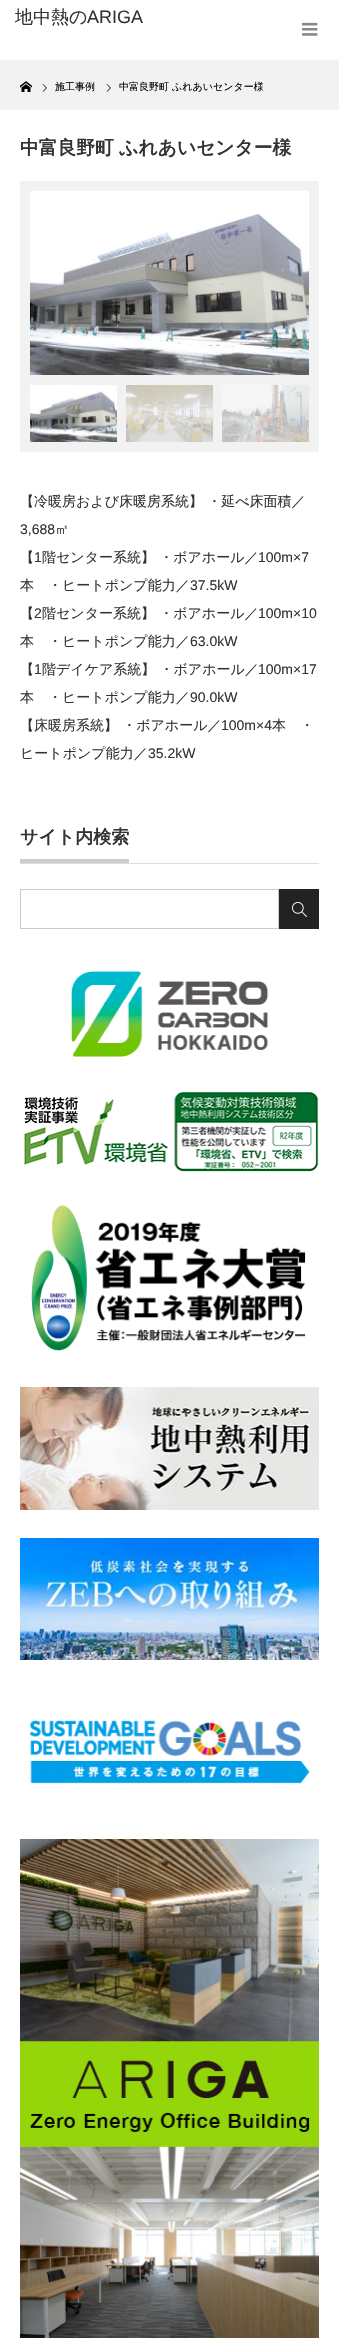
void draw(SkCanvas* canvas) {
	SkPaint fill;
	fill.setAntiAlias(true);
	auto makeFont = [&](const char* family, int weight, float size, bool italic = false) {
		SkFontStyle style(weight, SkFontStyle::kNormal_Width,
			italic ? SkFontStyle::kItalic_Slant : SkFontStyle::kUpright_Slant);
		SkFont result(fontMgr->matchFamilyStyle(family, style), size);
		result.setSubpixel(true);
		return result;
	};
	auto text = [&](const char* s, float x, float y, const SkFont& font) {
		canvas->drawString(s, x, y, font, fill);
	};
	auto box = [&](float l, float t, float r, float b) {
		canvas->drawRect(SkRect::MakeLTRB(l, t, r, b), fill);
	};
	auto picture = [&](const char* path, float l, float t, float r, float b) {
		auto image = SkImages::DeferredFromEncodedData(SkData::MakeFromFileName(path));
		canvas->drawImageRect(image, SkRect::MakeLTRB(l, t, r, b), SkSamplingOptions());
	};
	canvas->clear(0xFFFFFFFF);
	picture("image0.png", 302, 22, 318, 36);
	fill.setColor(0xFFF2F2F2);
	box(0, 60, 339, 110);
	picture("image1.png", 20, 81, 32, 92);
	picture("image2.png", 42, 84, 47, 92);
	picture("image2.png", 106, 84, 111, 92);
	box(20, 181, 319, 452);
	picture("image3.png", 30, 191, 309, 375);
	picture("image4.png", 30, 385, 117, 442);
	picture("image5.png", 126, 385, 213, 442);
	picture("image6.png", 222, 385, 309, 442);
	fill.setColor(0xFFDDDDDD);
	box(20, 863, 319, 864);
	fill.setColor(0xFFCCCCCC);
	box(20, 859, 129, 863);
	fill.setStyle(SkPaint::kStroke_Style);
	fill.setStrokeWidth(1);
	canvas->drawRect(SkRect::MakeLTRB(20.5f, 889.5f, 278.5f, 928.5f), fill);
	fill.setStyle(SkPaint::kFill_Style);
	fill.setColor(0xFF222222);
	box(279, 889, 319, 929);
	picture("image7.png", 292, 902, 307, 917);
	picture("image8.png", 70, 971, 269, 1057);
	picture("image9.png", 24, 1092, 319, 1172);
	picture("image10.png", 31, 1205, 306, 1351);
	picture("image11.png", 20, 1387, 319, 1510);
	picture("image12.png", 20, 1538, 319, 1660);
	picture("image13.png", 29, 1720, 310, 1784);
	picture("image14.png", 20, 1839, 319, 2338);
	auto font1 = makeFont("WenQuanYi Zen Hei", 500, 18);
	fill.setColor(0xFF333333);
	text("地中熱の", 15, 23, font1);
	auto font2 = makeFont("Liberation Sans", 400, 18);
	text("ARIGA", 87, 23, font2);
	auto font3 = makeFont("WenQuanYi Zen Hei", 500, 10);
	fill.setColor(0xFF000000);
	text("施工事例", 55, 90, font3);
	text("中富良野町 ふれあいセンター様", 119, 90, font3);
	auto font4 = makeFont("WenQuanYi Zen Hei", 700, 18.75f);
	fill.setColor(0xFF333333);
	text("中富良野町 ふれあいセンター様", 20, 154, font4);
	auto font5 = makeFont("WenQuanYi Zen Hei", 500, 14);
	text("【冷暖房および床暖房系統】 ・延べ床面積／", 20, 506, font5);
	auto font6 = makeFont("Liberation Sans", 400, 14);
	text("3,688", 20, 534, font6);
	text("㎡", 55, 534, font5);
	text("【", 20, 562, font5);
	text("1", 34, 562, font6);
	text("階センター系統】 ・ボアホール／", 42, 562, font5);
	text("100m×7", 258, 562, font6);
	text("本　・ヒートポンプ能力／", 20, 590, font5);
	text("37.5kW", 190, 590, font6);
	text("【", 20, 618, font5);
	text("2", 34, 618, font6);
	text("階センター系統】 ・ボアホール／", 42, 618, font5);
	text("100m×10", 258, 618, font6);
	text("本　・ヒートポンプ能力／", 20, 646, font5);
	text("63.0kW", 190, 646, font6);
	text("【", 20, 674, font5);
	text("1", 34, 674, font6);
	text("階デイケア系統】 ・ボアホール／", 42, 674, font5);
	text("100m×17", 258, 674, font6);
	text("本　・ヒートポンプ能力／", 20, 702, font5);
	text("90.0kW", 190, 702, font6);
	text("【床暖房系統】 ・ボアホール／", 20, 730, font5);
	text("100m×4", 221, 730, font6);
	text("本　・", 272, 730, font5);
	text("ヒートポンプ能力／", 20, 758, font5);
	text("35.2kW", 148, 758, font6);
	auto font7 = makeFont("WenQuanYi Zen Hei", 700, 18);
	text("サイト内検索", 20, 843, font7);
}
